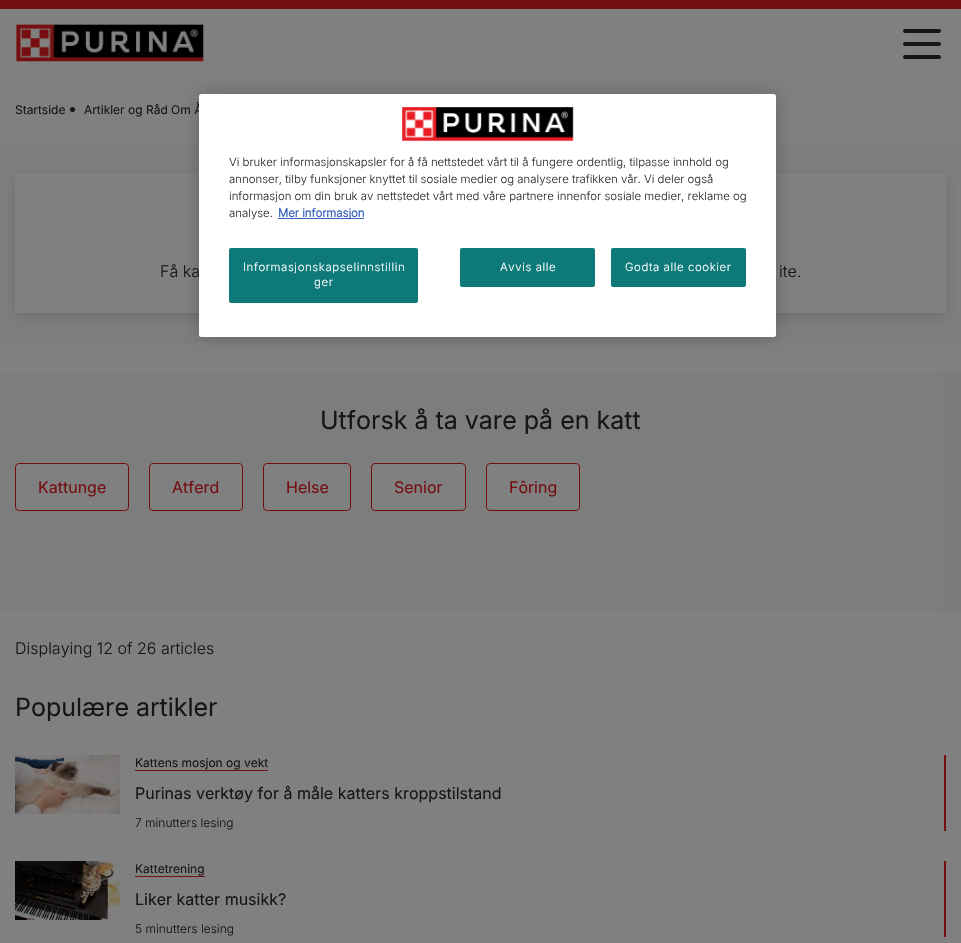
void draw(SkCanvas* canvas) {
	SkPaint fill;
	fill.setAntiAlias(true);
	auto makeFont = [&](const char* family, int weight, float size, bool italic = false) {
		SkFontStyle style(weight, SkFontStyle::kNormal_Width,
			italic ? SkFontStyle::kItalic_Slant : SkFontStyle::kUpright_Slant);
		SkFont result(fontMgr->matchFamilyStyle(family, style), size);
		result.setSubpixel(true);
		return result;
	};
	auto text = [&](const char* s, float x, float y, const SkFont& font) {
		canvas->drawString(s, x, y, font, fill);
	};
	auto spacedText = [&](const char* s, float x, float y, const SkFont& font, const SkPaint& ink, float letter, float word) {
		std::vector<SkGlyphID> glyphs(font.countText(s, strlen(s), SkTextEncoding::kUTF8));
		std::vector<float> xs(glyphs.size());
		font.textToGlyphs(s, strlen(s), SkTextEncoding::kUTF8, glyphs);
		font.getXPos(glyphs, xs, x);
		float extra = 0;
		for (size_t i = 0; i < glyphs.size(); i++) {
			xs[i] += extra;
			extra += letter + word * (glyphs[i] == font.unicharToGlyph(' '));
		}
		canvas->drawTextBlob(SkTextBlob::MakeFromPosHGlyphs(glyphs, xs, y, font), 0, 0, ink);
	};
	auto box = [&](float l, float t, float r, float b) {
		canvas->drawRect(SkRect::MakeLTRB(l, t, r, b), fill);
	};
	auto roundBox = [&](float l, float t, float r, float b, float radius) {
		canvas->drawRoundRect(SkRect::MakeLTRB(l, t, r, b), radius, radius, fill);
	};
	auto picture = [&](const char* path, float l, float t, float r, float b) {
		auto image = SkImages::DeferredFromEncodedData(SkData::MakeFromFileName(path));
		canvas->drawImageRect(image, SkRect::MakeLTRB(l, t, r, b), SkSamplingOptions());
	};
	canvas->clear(0xFF808080);
	fill.setColor(0xFF750E12);
	box(0, 0, 961, 9);
	picture("image0.png", 16, 24, 205, 62);
	fill.setColor(0xFF161616);
	roundBox(903, 29, 941, 33, 2);
	roundBox(903, 42, 941, 46, 2);
	roundBox(903, 55, 941, 59, 2);
	canvas->drawCircle(72.5f, 109.5f, 2.5f, fill);
	fill.setColor(0xFF7D7D7D);
	box(0, 143, 961, 343);
	fill.setColor(0x292C2826);
	fill.setMaskFilter(SkMaskFilter::MakeBlur(kNormal_SkBlurStyle, 6));
	canvas->drawRect(SkRect::MakeLTRB(15, 177, 946, 317), fill);
	fill.setMaskFilter(nullptr);
	fill.setColor(0xFF808080);
	box(15, 173, 946, 313);
	fill.setColor(0xFF7D7D7D);
	box(0, 373, 921, 611);
	{
		const SkColor colors[] = {0xFF7D7C7B, 0xFF7D7D7D};
		const float stops[] = {0, 1};
		const SkPoint ends[] = {{961, 492}, {921, 492}};
		fill.setShader(SkGradientShader::MakeLinear(ends, colors, stops, 2, SkTileMode::kClamp));
		fill.setAlpha(255);
	}
	box(921, 373, 961, 611);
	fill.setShader(nullptr);
	fill.setColor(0xFF808080);
	canvas->drawRoundRect(SkRect::MakeLTRB(15.5f, 463.5f, 128.5f, 510.5f), 3.5f, 3.5f, fill);
	fill.setStyle(SkPaint::kStroke_Style);
	fill.setStrokeWidth(1);
	fill.setColor(0xFF750E12);
	canvas->drawRoundRect(SkRect::MakeLTRB(15.5f, 463.5f, 128.5f, 510.5f), 3.5f, 3.5f, fill);
	fill.setStyle(SkPaint::kFill_Style);
	fill.setColor(0xFF808080);
	canvas->drawRoundRect(SkRect::MakeLTRB(149.5f, 463.5f, 242.5f, 510.5f), 3.5f, 3.5f, fill);
	fill.setStyle(SkPaint::kStroke_Style);
	fill.setColor(0xFF750E12);
	canvas->drawRoundRect(SkRect::MakeLTRB(149.5f, 463.5f, 242.5f, 510.5f), 3.5f, 3.5f, fill);
	fill.setStyle(SkPaint::kFill_Style);
	fill.setColor(0xFF808080);
	canvas->drawRoundRect(SkRect::MakeLTRB(263.5f, 463.5f, 350.5f, 510.5f), 3.5f, 3.5f, fill);
	fill.setStyle(SkPaint::kStroke_Style);
	fill.setColor(0xFF750E12);
	canvas->drawRoundRect(SkRect::MakeLTRB(263.5f, 463.5f, 350.5f, 510.5f), 3.5f, 3.5f, fill);
	fill.setStyle(SkPaint::kFill_Style);
	fill.setColor(0xFF808080);
	canvas->drawRoundRect(SkRect::MakeLTRB(371.5f, 463.5f, 465.5f, 510.5f), 3.5f, 3.5f, fill);
	fill.setStyle(SkPaint::kStroke_Style);
	fill.setColor(0xFF750E12);
	canvas->drawRoundRect(SkRect::MakeLTRB(371.5f, 463.5f, 465.5f, 510.5f), 3.5f, 3.5f, fill);
	fill.setStyle(SkPaint::kFill_Style);
	fill.setColor(0xFF808080);
	canvas->drawRoundRect(SkRect::MakeLTRB(486.5f, 463.5f, 579.5f, 510.5f), 3.5f, 3.5f, fill);
	fill.setStyle(SkPaint::kStroke_Style);
	fill.setColor(0xFF750E12);
	canvas->drawRoundRect(SkRect::MakeLTRB(486.5f, 463.5f, 579.5f, 510.5f), 3.5f, 3.5f, fill);
	picture("image1.png", 15, 755, 120, 814);
	fill.setStyle(SkPaint::kFill_Style);
	box(944, 755, 946, 831);
	box(135, 770, 268, 771);
	picture("image2.png", 15, 861, 120, 920);
	box(944, 861, 946, 937);
	box(135, 876, 205, 877);
	fill.setColor(0x33000000);
	fill.setMaskFilter(SkMaskFilter::MakeBlur(kNormal_SkBlurStyle, 9));
	canvas->drawRoundRect(SkRect::MakeLTRB(199, 94, 776, 337), 2.5f, 2.5f, fill);
	fill.setMaskFilter(nullptr);
	auto font1 = makeFont("Inter", 400, 12);
	fill.setColor(0xFF161616);
	text("Startside", 15, 114, font1);
	text("Artikler og Råd Om Å", 84, 114, font1);
	auto font2 = makeFont("Inter", 300, 16);
	text("Få ka", 160, 277, font2);
	text("ite.", 779, 277, font2);
	auto font3 = makeFont("Inter", 400, 25);
	text("Utforsk å ta vare på en katt", 320, 429, font3);
	auto font4 = makeFont("Inter", 400, 16);
	fill.setColor(0xFF750E12);
	text("Kattunge", 38, 493, font4);
	text("Atferd", 172, 493, font4);
	text("Helse", 286, 493, font4);
	text("Senior", 394, 493, font4);
	text("Fôring", 509, 493, font4);
	fill.setColor(0xFF161616);
	text("Displaying 12 of 26 articles", 15, 654, font2);
	text("Populære artikler", 15, 716, font3);
	text("Kattens mosjon og vekt", 135, 767, font1);
	text("Purinas verktøy for å måle katters kroppstilstand", 135, 799, font4);
	auto font5 = makeFont("Inter", 300, 12);
	text("7 minutters lesing", 135, 827, font5);
	text("Kattetrening", 135, 873, font1);
	text("Liker katter musikk?", 135, 905, font4);
	text("5 minutters lesing", 135, 933, font5);
	fill.setColor(0xFFFFFFFF);
	roundBox(199, 94, 776, 337, 2.5f);
	picture("image3.png", 402, 107, 574, 142);
	auto font6 = makeFont("Inter", 300, 11.4f);
	fill.setColor(0xFF333333);
	text("Vi bruker informasjonskapsler for å få nettstedet vårt til å fungere ordentlig, tilpasse innhold og", 229, 166, font6);
	text("annonser, tilby funksjoner knyttet til sosiale medier og analysere trafikken vår. Vi deler også", 229, 183, font6);
	text("informasjon om din bruk av nettstedet vårt med våre partnere innenfor sosiale medier, reklame og", 229, 200, font6);
	text("analyse.", 229, 217, font6);
	fill.setColor(0xFF3860BE);
	box(278, 218, 364, 219);
	auto font7 = makeFont("Inter", 700, 11.4f);
	text("Mer informasjon", 278, 217, font7);
	fill.setColor(0xFF0D7978);
	roundBox(229, 248, 418, 303, 2);
	fill.setColor(0xFFFFFFFF);
	spacedText("Informasjonskapselinnstillin", 243, 271, font6, fill, 0.6f, 0);
	spacedText("ger", 314, 286, font6, fill, 0.6f, 0);
	fill.setColor(0xFF0D7978);
	roundBox(460, 248, 595, 287, 2);
	fill.setColor(0xFFFFFFFF);
	spacedText("Avvis alle", 500, 271, font6, fill, 0.6f, 0);
	fill.setColor(0xFF0D7978);
	roundBox(611, 248, 746, 287, 2);
	fill.setColor(0xFFFFFFFF);
	spacedText("Godta alle cookier", 625, 271, font6, fill, 0.6f, 0);
}
